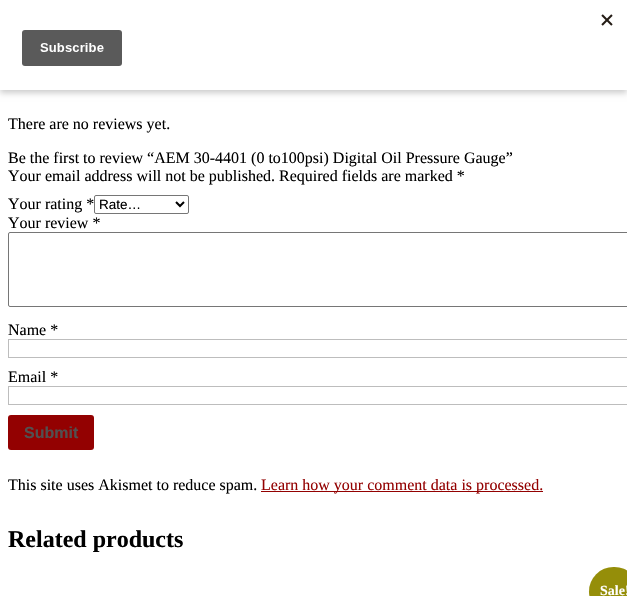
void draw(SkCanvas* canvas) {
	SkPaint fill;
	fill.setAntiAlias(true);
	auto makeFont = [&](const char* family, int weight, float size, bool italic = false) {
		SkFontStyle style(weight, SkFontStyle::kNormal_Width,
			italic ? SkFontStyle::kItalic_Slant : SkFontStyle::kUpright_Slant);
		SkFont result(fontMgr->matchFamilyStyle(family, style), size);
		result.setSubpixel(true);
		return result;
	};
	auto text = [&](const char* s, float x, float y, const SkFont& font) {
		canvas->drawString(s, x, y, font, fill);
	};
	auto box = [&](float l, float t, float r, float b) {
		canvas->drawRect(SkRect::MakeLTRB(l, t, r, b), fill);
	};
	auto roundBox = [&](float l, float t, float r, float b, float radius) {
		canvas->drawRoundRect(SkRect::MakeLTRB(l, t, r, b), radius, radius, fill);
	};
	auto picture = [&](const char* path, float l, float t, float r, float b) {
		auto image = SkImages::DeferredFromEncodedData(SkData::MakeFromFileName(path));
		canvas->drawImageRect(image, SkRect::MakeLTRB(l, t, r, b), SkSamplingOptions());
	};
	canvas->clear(0xFFFFFFFF);
	fill.setColor(0x33000000);
	fill.setMaskFilter(SkMaskFilter::MakeBlur(kNormal_SkBlurStyle, 3));
	canvas->drawRect(SkRect::MakeLTRB(0, 3, 627, 93), fill);
	fill.setMaskFilter(nullptr);
	fill.setColor(0xFFFFFFFF);
	box(0, 0, 627, 90);
	picture("image0.png", 22, 14, 613, 66);
	fill.setStyle(SkPaint::kStroke_Style);
	fill.setStrokeWidth(1);
	fill.setColor(0xFF767676);
	canvas->drawRoundRect(SkRect::MakeLTRB(94.5f, 195.5f, 188.5f, 213.5f), 1.5f, 1.5f, fill);
	fill.setStrokeWidth(2);
	fill.setColor(0xFF000000);
	canvas->drawPath(SkPathBuilder().moveTo(176, 202).lineTo(180, 206).lineTo(184, 202).detach(), fill);
	fill.setStrokeWidth(1);
	fill.setColor(0xFF767676);
	canvas->drawRoundRect(SkRect::MakeLTRB(8.5f, 232.5f, 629.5f, 306.5f), 1.5f, 1.5f, fill);
	fill.setColor(0xFFBDBDBD);
	canvas->drawRect(SkRect::MakeLTRB(8.5f, 339.5f, 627.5f, 357.5f), fill);
	canvas->drawRect(SkRect::MakeLTRB(8.5f, 386.5f, 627.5f, 404.5f), fill);
	fill.setStyle(SkPaint::kFill_Style);
	fill.setColor(0xFF930101);
	roundBox(8, 415, 94, 450, 3);
	box(261, 491, 543, 492);
	fill.setColor(0xFF958E09);
	roundBox(589, 567, 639, 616, 24.5f);
	auto font1 = makeFont("Liberation Serif", 400, 16);
	fill.setColor(0xFF000000);
	text("There are no reviews yet.", 8, 129, font1);
	text("Be the first to review “AEM 30-4401 (0 to100psi) Digital Oil Pressure Gauge”", 8, 163, font1);
	text("Your email address will not be published. Required fields are marked *", 8, 181, font1);
	text("Your rating *", 8, 209, font1);
	auto font2 = makeFont("Liberation Sans", 400, 13.5f);
	text("Rate…", 99, 209, font2);
	text("Your review *", 8, 228, font1);
	text("Name *", 8, 335, font1);
	text("Email *", 8, 382, font1);
	auto font3 = makeFont("Liberation Sans", 700, 16);
	fill.setColor(0xFF515151);
	text("Submit", 24, 438, font3);
	fill.setColor(0xFF000000);
	text("This site uses Akismet to reduce spam.", 8, 490, font1);
	fill.setColor(0xFF930101);
	text("Learn how your comment data is processed.", 261, 490, font1);
	auto font4 = makeFont("Liberation Serif", 700, 24);
	fill.setColor(0xFF000000);
	text("Related products", 8, 547, font4);
	auto font5 = makeFont("Liberation Serif", 700, 14);
	fill.setColor(0xFFFFFFFF);
	text("Sale!", 600, 595, font5);
}
